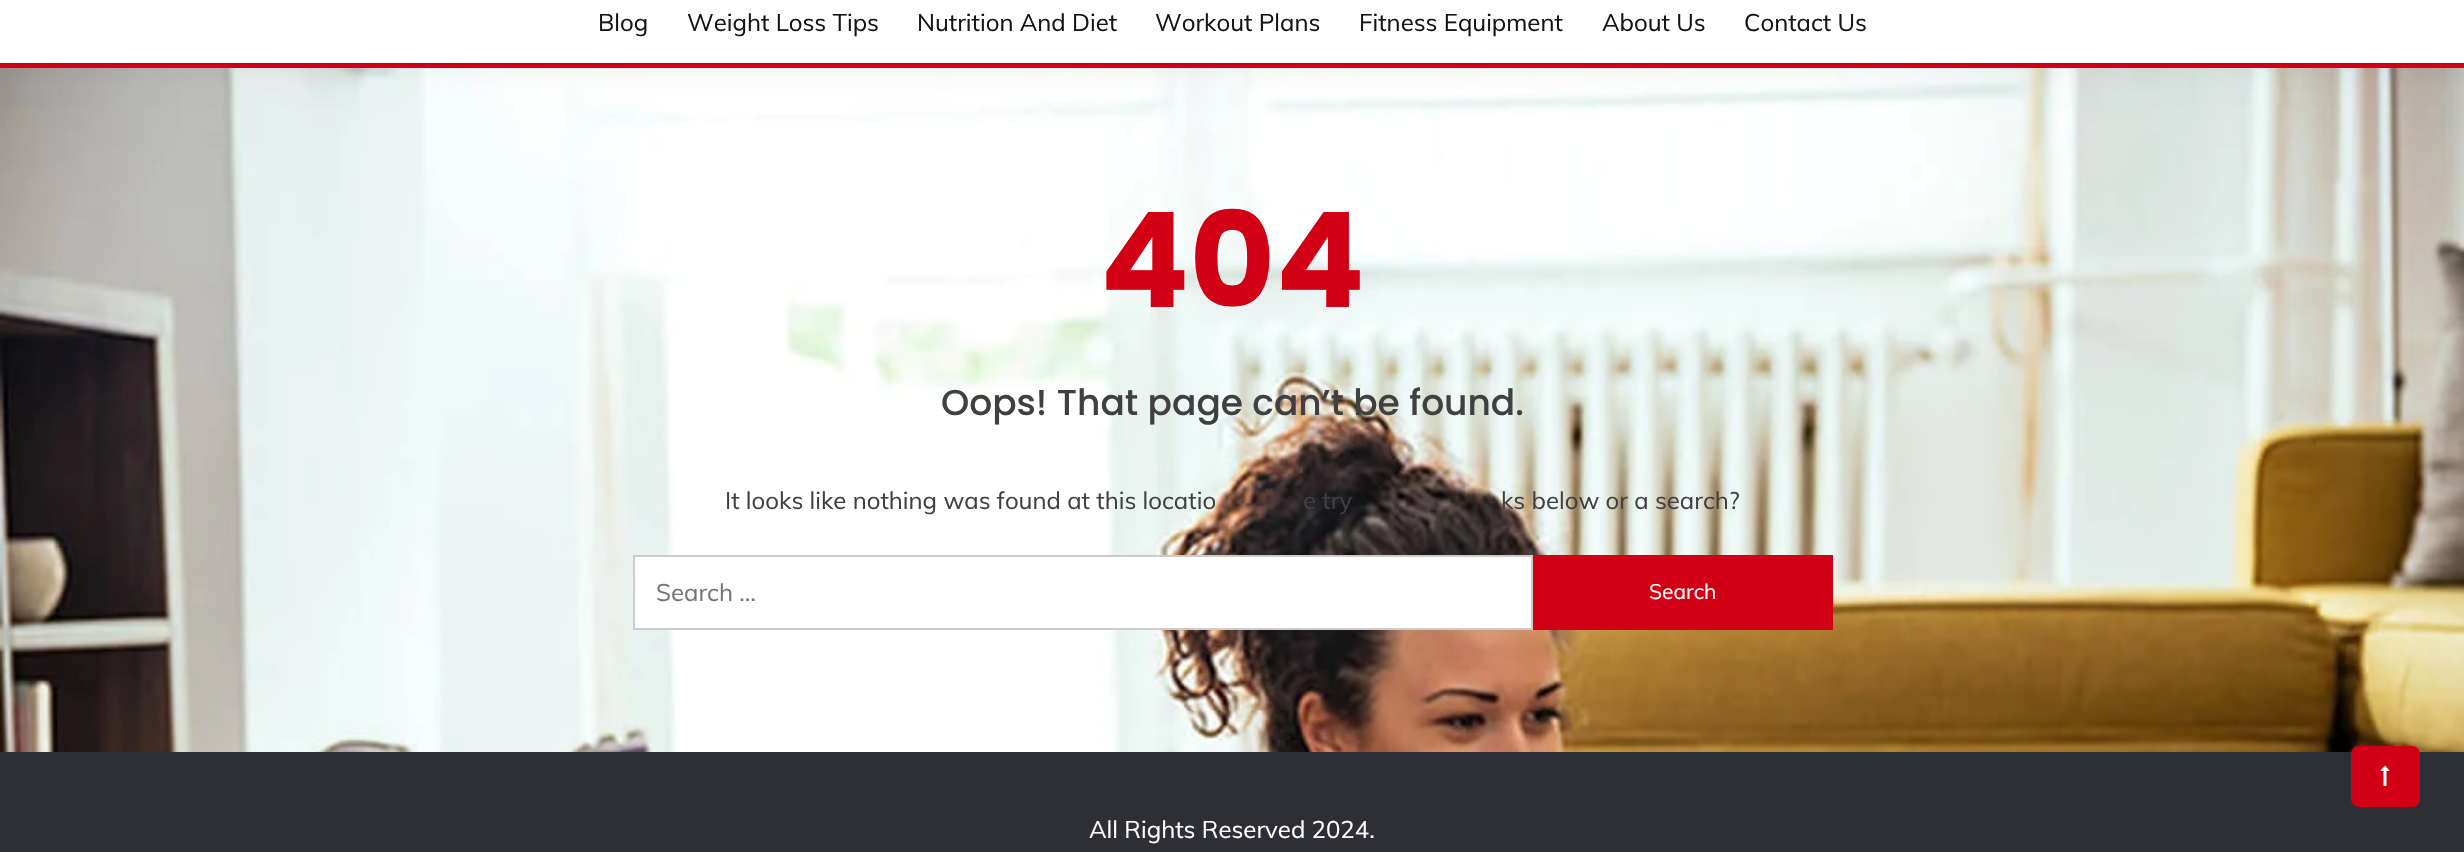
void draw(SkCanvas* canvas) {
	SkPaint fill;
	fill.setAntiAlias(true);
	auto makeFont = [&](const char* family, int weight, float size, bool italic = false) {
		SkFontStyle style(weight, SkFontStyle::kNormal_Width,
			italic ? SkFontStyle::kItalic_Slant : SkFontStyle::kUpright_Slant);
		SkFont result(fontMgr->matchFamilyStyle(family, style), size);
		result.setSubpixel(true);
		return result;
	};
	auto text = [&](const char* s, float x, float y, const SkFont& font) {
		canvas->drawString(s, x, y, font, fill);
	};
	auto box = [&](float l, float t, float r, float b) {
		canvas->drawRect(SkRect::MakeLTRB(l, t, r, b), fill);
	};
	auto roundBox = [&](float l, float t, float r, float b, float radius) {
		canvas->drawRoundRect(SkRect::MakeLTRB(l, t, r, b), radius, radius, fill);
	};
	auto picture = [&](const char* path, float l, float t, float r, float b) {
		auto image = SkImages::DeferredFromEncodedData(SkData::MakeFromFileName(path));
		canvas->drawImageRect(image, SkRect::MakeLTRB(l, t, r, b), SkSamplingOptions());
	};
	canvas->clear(0xFFFFFFFF);
	picture("image0.png", 0, 68, 2464, 752);
	fill.setColor(0x0A000000);
	fill.setMaskFilter(SkMaskFilter::MakeBlur(kNormal_SkBlurStyle, 11));
	canvas->drawRect(SkRect::MakeLTRB(0, -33, 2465, 75), fill);
	fill.setMaskFilter(nullptr);
	fill.setColor(0xFFFFFFFF);
	box(0, 0, 2464, 63);
	fill.setColor(0xFFD10014);
	box(0, 63, 2464, 68);
	fill.setColor(0xFFFFFFFF);
	canvas->drawRect(SkRect::MakeLTRB(634, 556, 1532, 629), fill);
	fill.setStyle(SkPaint::kStroke_Style);
	fill.setStrokeWidth(2);
	fill.setColor(0xFFCCCCCC);
	canvas->drawRect(SkRect::MakeLTRB(634, 556, 1532, 629), fill);
	fill.setStyle(SkPaint::kFill_Style);
	fill.setColor(0xFFD10014);
	box(1533, 555, 1833, 630);
	fill.setColor(0xFF2E2E35);
	box(0, 752, 2464, 852);
	fill.setColor(0xFFD10014);
	roundBox(2351, 746, 2420, 807, 8);
	picture("image1.png", 2380, 765, 2390, 786);
	auto font1 = makeFont("Muli", 400, 24);
	fill.setColor(0xFF141413);
	text("Blog", 598, 31, font1);
	text("Weight Loss Tips", 687, 31, font1);
	text("Nutrition And Diet", 917, 31, font1);
	text("Workout Plans", 1155, 31, font1);
	text("Fitness Equipment", 1359, 31, font1);
	text("About Us", 1602, 31, font1);
	text("Contact Us", 1744, 31, font1);
	auto font2 = makeFont("Poppins", 700, 132);
	fill.setColor(0xFFD10014);
	text("404", 1100, 307, font2);
	auto font3 = makeFont("Poppins", 500, 36);
	fill.setColor(0xFF404040);
	text("Oops! That page can’t be found.", 941, 415, font3);
	text("It looks like nothing was found at this locatio", 725, 509, font1);
	text("e try", 1303, 509, font1);
	text("ks below or a search?", 1501, 509, font1);
	fill.setColor(0xFF757575);
	text("Search …", 656, 601, font1);
	auto font4 = makeFont("Muli", 400, 21);
	fill.setColor(0xFFFFFFFF);
	text("Search", 1649, 599, font4);
	text("All Rights Reserved 2024.", 1089, 838, font1);
}
